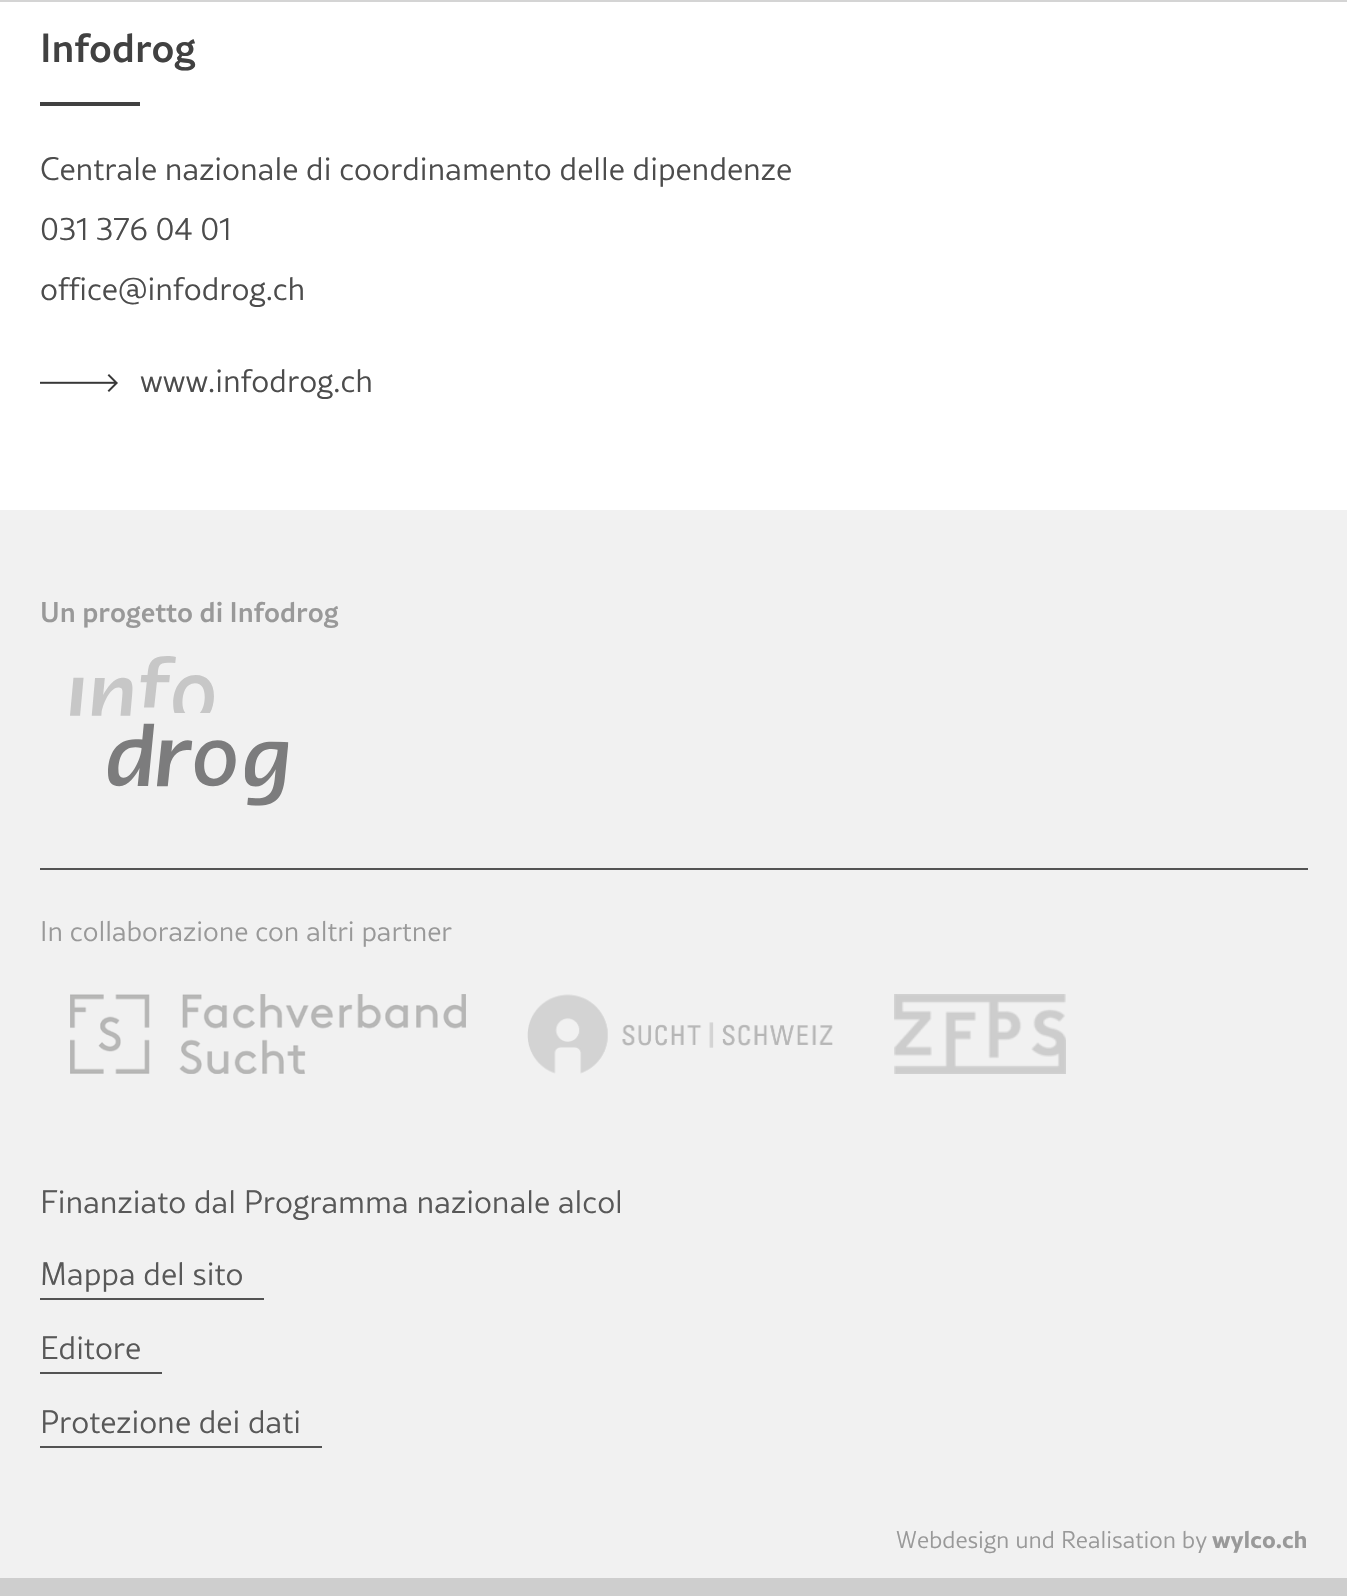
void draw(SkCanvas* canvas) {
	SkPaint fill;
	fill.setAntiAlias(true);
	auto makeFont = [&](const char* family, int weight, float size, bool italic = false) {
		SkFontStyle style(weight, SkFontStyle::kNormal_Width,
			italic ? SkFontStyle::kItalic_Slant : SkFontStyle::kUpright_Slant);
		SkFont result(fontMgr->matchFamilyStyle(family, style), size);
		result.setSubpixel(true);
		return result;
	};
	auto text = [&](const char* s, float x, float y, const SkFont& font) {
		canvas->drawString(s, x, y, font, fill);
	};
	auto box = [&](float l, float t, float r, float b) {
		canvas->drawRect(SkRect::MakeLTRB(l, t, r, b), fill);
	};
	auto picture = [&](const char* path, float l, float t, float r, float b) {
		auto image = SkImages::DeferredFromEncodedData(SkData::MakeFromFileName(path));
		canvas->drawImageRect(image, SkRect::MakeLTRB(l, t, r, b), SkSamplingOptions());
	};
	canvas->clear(0xFFFFFFFF);
	fill.setColor(0xFFD4D4D4);
	box(0, 0, 1347, 2);
	fill.setColor(0xFF414141);
	box(40, 102, 140, 106);
	picture("image0.png", 40, 374, 118, 392);
	fill.setColor(0xFFF1F1F1);
	box(0, 510, 1347, 1578);
	fill.setColor(0xFFCECECE);
	box(0, 1578, 1347, 1596);
	fill.setColor(0xFF535353);
	box(40, 868, 1308, 870);
	picture("image1.png", 70, 656, 289, 806);
	picture("image2.png", 70, 994, 466, 1074);
	picture("image3.png", 527, 994, 833, 1074);
	picture("image4.png", 894, 994, 1066, 1074);
	box(40, 1298, 264, 1300);
	box(40, 1372, 162, 1374);
	box(40, 1446, 322, 1448);
	auto font1 = makeFont("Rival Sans", 500, 40);
	fill.setColor(0xFF414141);
	text("Infodrog", 40, 62, font1);
	auto font2 = makeFont("Rival Sans", 300, 32);
	fill.setColor(0xFF4C4C4C);
	text("Centrale nazionale di coordinamento delle dipendenze", 40, 180, font2);
	text("031 376 04 01", 40, 240, font2);
	text("office@infodrog.ch", 40, 300, font2);
	text("www.infodrog.ch", 140, 392, font2);
	auto font3 = makeFont("Rival Sans", 500, 28);
	fill.setColor(0xFF999999);
	text("Un progetto di Infodrog", 40, 622, font3);
	auto font4 = makeFont("Rival Sans", 300, 28);
	text("In collaborazione con altri partner", 40, 941, font4);
	fill.setColor(0xFF585858);
	text("Finanziato dal Programma nazionale alcol", 40, 1213, font2);
	text("Mappa del sito", 40, 1285, font2);
	text("Editore", 40, 1359, font2);
	text("Protezione dei dati", 40, 1433, font2);
	auto font5 = makeFont("Rival Sans", 300, 24);
	fill.setColor(0xFF999999);
	text("Webdesign und Realisation by", 896, 1548, font5);
	auto font6 = makeFont("Rival Sans", 700, 24);
	text("wylco.ch", 1212, 1548, font6);
}
